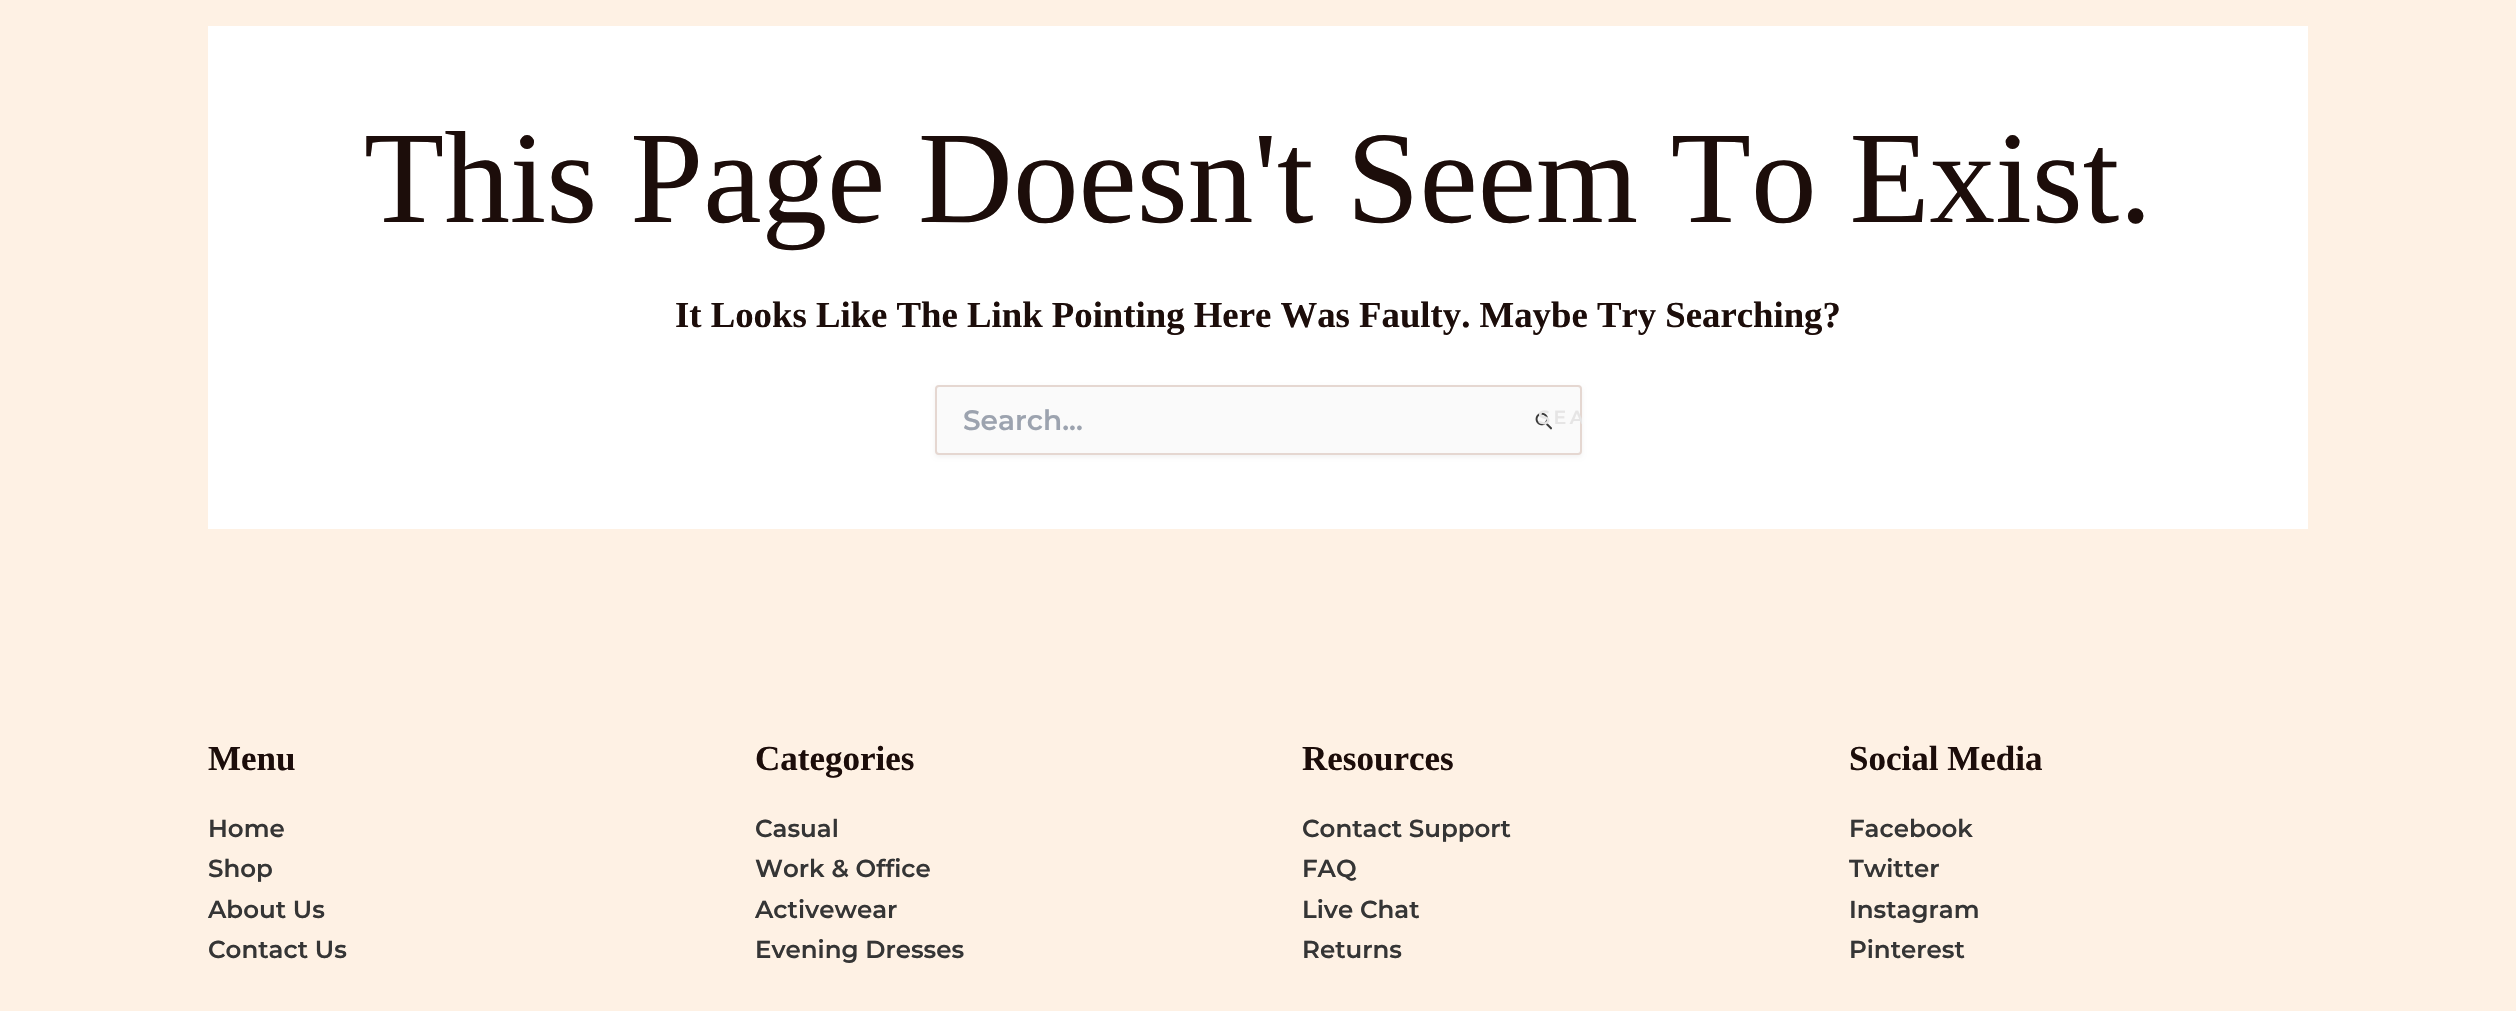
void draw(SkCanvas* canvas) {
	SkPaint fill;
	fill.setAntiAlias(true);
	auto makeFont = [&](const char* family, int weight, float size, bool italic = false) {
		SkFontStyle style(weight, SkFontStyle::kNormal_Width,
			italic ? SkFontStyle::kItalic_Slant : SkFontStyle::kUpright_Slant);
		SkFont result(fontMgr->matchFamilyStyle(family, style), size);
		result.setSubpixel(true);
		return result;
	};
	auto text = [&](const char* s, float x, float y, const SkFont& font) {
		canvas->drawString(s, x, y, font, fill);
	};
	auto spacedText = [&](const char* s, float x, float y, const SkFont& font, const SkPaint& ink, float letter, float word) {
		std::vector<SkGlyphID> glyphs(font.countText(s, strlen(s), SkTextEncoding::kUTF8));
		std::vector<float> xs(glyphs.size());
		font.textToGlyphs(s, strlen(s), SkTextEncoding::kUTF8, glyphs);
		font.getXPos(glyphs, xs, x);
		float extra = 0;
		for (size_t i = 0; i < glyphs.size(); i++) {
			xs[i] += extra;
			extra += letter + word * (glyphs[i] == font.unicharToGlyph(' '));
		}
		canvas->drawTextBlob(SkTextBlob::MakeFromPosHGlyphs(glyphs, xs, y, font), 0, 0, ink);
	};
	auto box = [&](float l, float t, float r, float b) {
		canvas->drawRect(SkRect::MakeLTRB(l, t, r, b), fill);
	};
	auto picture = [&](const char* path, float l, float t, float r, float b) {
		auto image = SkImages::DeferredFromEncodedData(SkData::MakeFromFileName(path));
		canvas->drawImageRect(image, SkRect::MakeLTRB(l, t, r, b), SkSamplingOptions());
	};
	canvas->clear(0xFFFEF1E4);
	fill.setColor(0xFFFFFFFF);
	box(208, 26, 2308, 529);
	fill.setColor(0x0D000000);
	fill.setMaskFilter(SkMaskFilter::MakeBlur(kNormal_SkBlurStyle, 2));
	canvas->drawRoundRect(SkRect::MakeLTRB(935, 387, 1582, 457), 4, 4, fill);
	fill.setMaskFilter(nullptr);
	fill.setColor(0xFFFAFAFA);
	canvas->drawRoundRect(SkRect::MakeLTRB(936, 386, 1581, 454), 3, 3, fill);
	fill.setStyle(SkPaint::kStroke_Style);
	fill.setStrokeWidth(2);
	fill.setColor(0xFFE5D7D1);
	canvas->drawRoundRect(SkRect::MakeLTRB(936, 386, 1581, 454), 3, 3, fill);
	picture("image0.png", 1535, 412, 1552, 430);
	auto font1 = makeFont("Liberation Serif", 400, 131.25f);
	fill.setStyle(SkPaint::kFill_Style);
	fill.setColor(0xFF1C0D0A);
	text("This Page Doesn't Seem To Exist.", 364, 222, font1);
	auto font2 = makeFont("Liberation Serif", 700, 36.75f);
	text("It Looks Like The Link Pointing Here Was Faulty. Maybe Try Searching?", 675, 327, font2);
	auto font3 = makeFont("Montserrat", 100, 28);
	fill.setColor(0xFF9CA3AF);
	text("Search...", 963, 430, font3);
	canvas->save();
	canvas->clipPath(SkPathBuilder().moveTo(1507, 385).lineTo(1578, 385).cubicTo(1580, 385, 1582, 387, 1582, 389).lineTo(1582, 446).cubicTo(1582, 448, 1580, 450, 1578, 450).lineTo(1507, 450).cubicTo(1505, 450, 1503, 448, 1503, 446).lineTo(1503, 389).cubicTo(1503, 387, 1505, 385, 1507, 385).close().detach(), true);
	auto font4 = makeFont("Montserrat", 100, 19);
	fill.setColor(0xFFE6E5E5);
	spacedText("SEA", 1538, 424, font4, fill, 3.5f, 0);
	canvas->restore();
	auto font5 = makeFont("Liberation Serif", 700, 35);
	fill.setColor(0xFF1C0D0A);
	text("Menu", 208, 770, font5);
	auto font6 = makeFont("Montserrat", 100, 24.5f);
	fill.setColor(0xFF353535);
	text("Home", 208, 837, font6);
	text("Shop", 208, 877, font6);
	text("About Us", 208, 918, font6);
	text("Contact Us", 208, 958, font6);
	fill.setColor(0xFF1C0D0A);
	text("Categories", 755, 770, font5);
	fill.setColor(0xFF353535);
	text("Casual", 755, 837, font6);
	text("Work & Office", 755, 877, font6);
	text("Activewear", 755, 918, font6);
	text("Evening Dresses", 755, 958, font6);
	fill.setColor(0xFF1C0D0A);
	text("Resources", 1302, 770, font5);
	fill.setColor(0xFF353535);
	text("Contact Support", 1302, 837, font6);
	text("FAQ", 1302, 877, font6);
	text("Live Chat", 1302, 918, font6);
	text("Returns", 1302, 958, font6);
	fill.setColor(0xFF1C0D0A);
	text("Social Media", 1849, 770, font5);
	fill.setColor(0xFF353535);
	text("Facebook", 1849, 837, font6);
	text("Twitter", 1849, 877, font6);
	text("Instagram", 1849, 918, font6);
	text("Pinterest", 1849, 958, font6);
}
